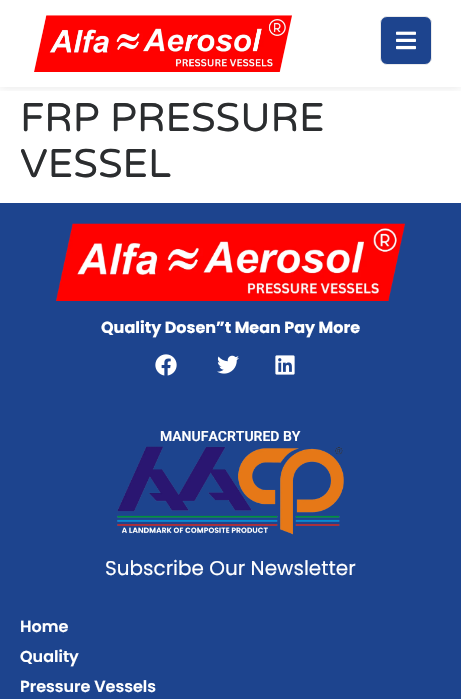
void draw(SkCanvas* canvas) {
	SkPaint fill;
	fill.setAntiAlias(true);
	auto makeFont = [&](const char* family, int weight, float size, bool italic = false) {
		SkFontStyle style(weight, SkFontStyle::kNormal_Width,
			italic ? SkFontStyle::kItalic_Slant : SkFontStyle::kUpright_Slant);
		SkFont result(fontMgr->matchFamilyStyle(family, style), size);
		result.setSubpixel(true);
		return result;
	};
	auto text = [&](const char* s, float x, float y, const SkFont& font) {
		canvas->drawString(s, x, y, font, fill);
	};
	auto box = [&](float l, float t, float r, float b) {
		canvas->drawRect(SkRect::MakeLTRB(l, t, r, b), fill);
	};
	auto picture = [&](const char* path, float l, float t, float r, float b) {
		auto image = SkImages::DeferredFromEncodedData(SkData::MakeFromFileName(path));
		canvas->drawImageRect(image, SkRect::MakeLTRB(l, t, r, b), SkSamplingOptions());
	};
	canvas->clear(0xFFFFFFFF);
	canvas->save();
	canvas->clipRect(SkRect::MakeLTRB(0, 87, 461, 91));
	fill.setColor(0x1A000000);
	fill.setMaskFilter(SkMaskFilter::MakeBlur(kNormal_SkBlurStyle, 5));
	canvas->drawRect(SkRect::MakeLTRB(0, 0, 461, 87), fill);
	fill.setMaskFilter(nullptr);
	canvas->restore();
	picture("image0.png", 34, 15, 292, 72);
	fill.setColor(0xFF1D448E);
	canvas->drawRoundRect(SkRect::MakeLTRB(380.5f, 16.5f, 431.5f, 64.5f), 6.5f, 6.5f, fill);
	fill.setStyle(SkPaint::kStroke_Style);
	fill.setStrokeWidth(1);
	fill.setColor(0xFFEAEAEB);
	canvas->drawRoundRect(SkRect::MakeLTRB(380.5f, 16.5f, 431.5f, 64.5f), 6.5f, 6.5f, fill);
	picture("image1.png", 396, 31, 416, 50);
	fill.setStyle(SkPaint::kFill_Style);
	fill.setColor(0xFF1D448E);
	box(0, 203, 461, 699);
	picture("image2.png", 56, 223, 405, 301);
	picture("image3.png", 155, 354, 177, 376);
	picture("image4.png", 217, 355, 239, 374);
	picture("image5.png", 275, 355, 295, 375);
	picture("image6.png", 117, 446, 344, 535);
	auto font1 = makeFont("Varela Round", 400, 40);
	fill.setColor(0xFF2B2D2F);
	text("FRP PRESSURE", 20, 131, font1);
	text("VESSEL", 20, 177, font1);
	auto font2 = makeFont("Poppins", 700, 16);
	fill.setColor(0xFFFFFFFF);
	text("Quality Dosen”t Mean Pay More", 101, 333, font2);
	auto font3 = makeFont("Roboto", 600, 14);
	text("MANUFACRTURED BY", 160, 441, font3);
	auto font4 = makeFont("Poppins", 400, 20);
	text("Subscribe Our Newsletter", 105, 575, font4);
	auto font5 = makeFont("Poppins", 600, 16);
	text("Home", 20, 632, font5);
	text("Quality", 20, 662, font5);
	text("Pressure Vessels", 20, 692, font5);
}
